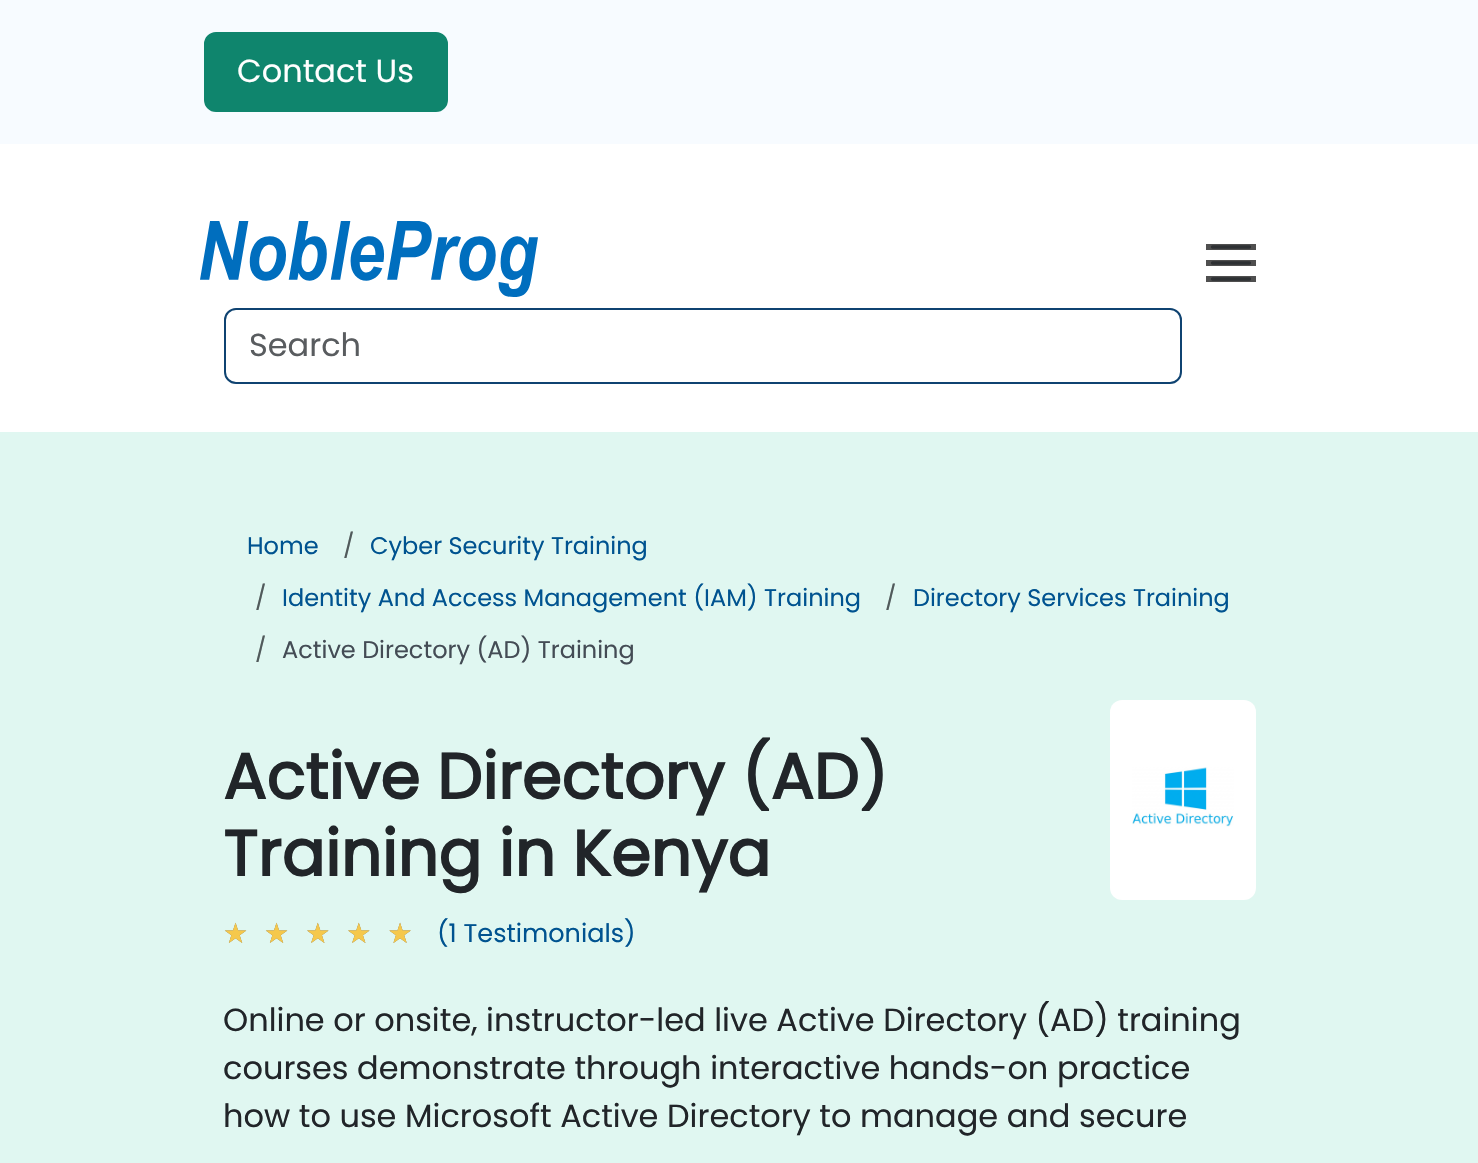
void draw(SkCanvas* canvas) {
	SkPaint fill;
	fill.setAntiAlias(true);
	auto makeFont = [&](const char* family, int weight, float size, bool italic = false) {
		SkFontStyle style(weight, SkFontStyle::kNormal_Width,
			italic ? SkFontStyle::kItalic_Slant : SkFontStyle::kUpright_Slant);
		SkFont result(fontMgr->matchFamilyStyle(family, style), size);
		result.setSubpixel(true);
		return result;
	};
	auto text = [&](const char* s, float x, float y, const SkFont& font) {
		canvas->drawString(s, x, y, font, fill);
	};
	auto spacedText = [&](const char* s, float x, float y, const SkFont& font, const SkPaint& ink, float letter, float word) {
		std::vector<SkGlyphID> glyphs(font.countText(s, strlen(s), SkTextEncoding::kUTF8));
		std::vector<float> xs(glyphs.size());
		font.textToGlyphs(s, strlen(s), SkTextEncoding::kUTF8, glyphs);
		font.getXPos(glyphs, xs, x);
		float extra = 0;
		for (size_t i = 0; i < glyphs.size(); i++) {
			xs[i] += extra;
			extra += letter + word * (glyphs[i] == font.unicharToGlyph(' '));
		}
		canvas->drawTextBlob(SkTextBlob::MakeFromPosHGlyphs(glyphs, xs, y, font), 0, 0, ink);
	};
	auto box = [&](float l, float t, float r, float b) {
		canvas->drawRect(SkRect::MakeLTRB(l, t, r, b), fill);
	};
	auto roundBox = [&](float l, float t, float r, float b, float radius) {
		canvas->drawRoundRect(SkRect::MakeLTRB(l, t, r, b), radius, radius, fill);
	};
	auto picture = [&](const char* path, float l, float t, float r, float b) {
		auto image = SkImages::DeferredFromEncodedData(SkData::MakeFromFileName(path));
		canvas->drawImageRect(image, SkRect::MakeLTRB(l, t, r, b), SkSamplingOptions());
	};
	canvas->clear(0xFFFFFFFF);
	fill.setColor(0xFFF7FBFF);
	box(0, 0, 1478, 144);
	fill.setColor(0xFF0F856D);
	canvas->drawRoundRect(SkRect::MakeLTRB(205, 33, 447, 111), 11, 11, fill);
	fill.setStyle(SkPaint::kStroke_Style);
	fill.setStrokeWidth(2);
	canvas->drawRoundRect(SkRect::MakeLTRB(205, 33, 447, 111), 11, 11, fill);
	fill.setStyle(SkPaint::kFill_Style);
	fill.setColor(0xFF4F4F4F);
	box(1206, 244, 1256, 250);
	canvas->save();
	canvas->clipRect(SkRect::MakeLTRB(1206, 244, 1256, 250));
	fill.setStyle(SkPaint::kStroke_Style);
	fill.setStrokeWidth(3.3f);
	fill.setStrokeCap(SkPaint::kRound_Cap);
	fill.setColor(0xFF2D3033);
	canvas->drawPath(SkPathBuilder().moveTo(1212.5f, 233.5f).lineTo(1249.5f, 233.5f).moveTo(1212.5f, 247).lineTo(1249.5f, 247).moveTo(1212.5f, 260.5f).lineTo(1249.5f, 260.5f).detach(), fill);
	canvas->restore();
	fill.setStyle(SkPaint::kFill_Style);
	fill.setColor(0xFF4F4F4F);
	box(1206, 260, 1256, 266);
	canvas->save();
	canvas->clipRect(SkRect::MakeLTRB(1206, 260, 1256, 266));
	fill.setStyle(SkPaint::kStroke_Style);
	fill.setColor(0xFF2D3033);
	canvas->drawPath(SkPathBuilder().moveTo(1212.5f, 249.5f).lineTo(1249.5f, 249.5f).moveTo(1212.5f, 263).lineTo(1249.5f, 263).moveTo(1212.5f, 276.5f).lineTo(1249.5f, 276.5f).detach(), fill);
	canvas->restore();
	fill.setStyle(SkPaint::kFill_Style);
	fill.setColor(0xFF4F4F4F);
	box(1206, 276, 1256, 282);
	canvas->save();
	canvas->clipRect(SkRect::MakeLTRB(1206, 276, 1256, 282));
	fill.setStyle(SkPaint::kStroke_Style);
	fill.setColor(0xFF2D3033);
	canvas->drawPath(SkPathBuilder().moveTo(1212.5f, 265.5f).lineTo(1249.5f, 265.5f).moveTo(1212.5f, 279).lineTo(1249.5f, 279).moveTo(1212.5f, 292.5f).lineTo(1249.5f, 292.5f).detach(), fill);
	canvas->restore();
	picture("image0.png", 200, 221, 538, 297);
	fill.setStrokeWidth(2);
	fill.setStrokeCap(SkPaint::kButt_Cap);
	fill.setColor(0xFF0F4371);
	canvas->drawRoundRect(SkRect::MakeLTRB(225, 309, 1181, 383), 11, 11, fill);
	fill.setStyle(SkPaint::kFill_Style);
	fill.setColor(0xFFE0F7F1);
	box(0, 432, 1478, 1163);
	fill.setColor(0xFFFFFFFF);
	roundBox(1110, 700, 1256, 900, 12);
	picture("image1.png", 1132, 767, 1234, 827);
	auto font1 = makeFont("Poppins", 400, 32);
	text("Contact Us", 237, 82, font1);
	fill.setColor(0xFF595C5F);
	text("Search", 249, 356, font1);
	auto font2 = makeFont("Poppins", 400, 24);
	fill.setColor(0xFF005390);
	text("Home", 247, 554, font2);
	fill.setColor(0xFF515A5B);
	text("/", 343, 554, font2);
	fill.setColor(0xFF005390);
	text("Cyber Security Training", 370, 554, font2);
	fill.setColor(0xFF515A5B);
	text("/", 255, 606, font2);
	fill.setColor(0xFF005390);
	text("Identity And Access Management (IAM) Training", 282, 606, font2);
	fill.setColor(0xFF515A5B);
	text("/", 885, 606, font2);
	fill.setColor(0xFF005390);
	text("Directory Services Training", 913, 606, font2);
	fill.setColor(0xFF515A5B);
	text("/", 255, 658, font2);
	fill.setColor(0xFF444C55);
	text("Active Directory (AD) Training", 282, 658, font2);
	auto font3 = makeFont("Poppins", 700, 64);
	fill.setColor(0xFF212529);
	text("Active Directory (AD)", 223, 799, font3);
	text("Training in Kenya", 223, 876, font3);
	auto font4 = makeFont("DejaVu Sans", 400, 28);
	fill.setColor(0xFF6F6F6F);
	spacedText("★★★★★", 223, 943, font4, fill, 16, 0);
	fill.setColor(0xFFF5C84C);
	spacedText("★★★★★", 223, 943, font4, fill, 16, 0);
	auto font5 = makeFont("Poppins", 400, 25.5f);
	fill.setColor(0xFF005390);
	text("(1 Testimonials)", 437, 942, font5);
	fill.setColor(0xFF212529);
	text("Online or onsite, instructor-led live Active Directory (AD) training", 223, 1031, font1);
	text("courses demonstrate through interactive hands-on practice", 223, 1079, font1);
	text("how to use Microsoft Active Directory to manage and secure", 223, 1127, font1);
}
